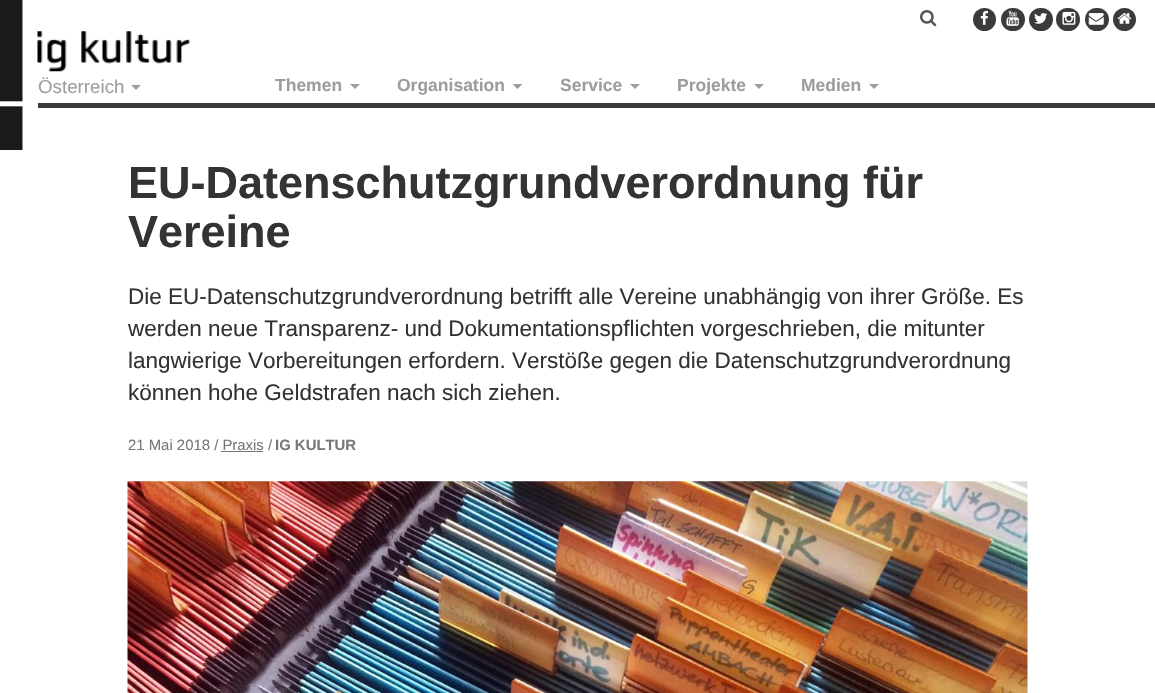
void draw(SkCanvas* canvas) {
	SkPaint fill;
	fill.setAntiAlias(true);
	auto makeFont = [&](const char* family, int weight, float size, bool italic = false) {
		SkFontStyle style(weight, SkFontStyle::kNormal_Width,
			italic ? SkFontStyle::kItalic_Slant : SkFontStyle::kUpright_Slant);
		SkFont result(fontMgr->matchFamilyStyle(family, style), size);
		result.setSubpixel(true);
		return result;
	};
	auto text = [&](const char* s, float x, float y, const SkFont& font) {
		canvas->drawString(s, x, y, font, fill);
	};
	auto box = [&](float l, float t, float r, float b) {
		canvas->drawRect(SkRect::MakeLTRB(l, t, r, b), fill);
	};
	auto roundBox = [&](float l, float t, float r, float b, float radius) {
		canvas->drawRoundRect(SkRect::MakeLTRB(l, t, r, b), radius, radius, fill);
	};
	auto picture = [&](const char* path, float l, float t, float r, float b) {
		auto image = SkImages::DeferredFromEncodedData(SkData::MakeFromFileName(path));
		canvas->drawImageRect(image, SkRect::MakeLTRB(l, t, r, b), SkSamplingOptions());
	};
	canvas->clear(0xFFFFFFFF);
	fill.setColor(0xFF3B3B3A);
	box(38, 103, 1155, 108);
	picture("image0.png", 0, 0, 23, 150);
	picture("image1.png", 920, 10, 937, 27);
	canvas->drawCircle(984.5f, 19.5f, 11.5f, fill);
	picture("image2.png", 980, 10, 989, 25);
	roundBox(1001, 8, 1025, 31, 11.5f);
	picture("image3.png", 1006, 10, 1019, 26);
	roundBox(1029, 8, 1053, 31, 11.5f);
	picture("image4.png", 1034, 13, 1048, 24);
	roundBox(1056, 8, 1080, 31, 11.5f);
	picture("image5.png", 1062, 11, 1076, 25);
	roundBox(1085, 8, 1109, 31, 11.5f);
	picture("image6.png", 1088, 13, 1104, 25);
	canvas->drawCircle(1124.5f, 19.5f, 11.5f, fill);
	picture("image7.png", 1117, 13, 1132, 24);
	picture("image8.png", 37, 31, 191, 72);
	fill.setColor(0xFF9D9D9D);
	canvas->drawPath(SkPathBuilder().moveTo(131, 85).lineTo(141, 85).lineTo(136, 90).close().detach(), fill);
	canvas->drawPath(SkPathBuilder().moveTo(350, 84).lineTo(360, 84).lineTo(355, 89).close().detach(), fill);
	canvas->drawPath(SkPathBuilder().moveTo(512.5f, 84).lineTo(522.5f, 84).lineTo(517.5f, 89).close().detach(), fill);
	canvas->drawPath(SkPathBuilder().moveTo(630, 84).lineTo(640, 84).lineTo(635, 89).close().detach(), fill);
	canvas->drawPath(SkPathBuilder().moveTo(754, 84).lineTo(764, 84).lineTo(759, 89).close().detach(), fill);
	canvas->drawPath(SkPathBuilder().moveTo(869, 84).lineTo(879, 84).lineTo(874, 89).close().detach(), fill);
	fill.setColor(0xFF777777);
	box(221, 451, 263, 452);
	picture("image9.png", 127, 481, 1028, 693);
	auto font1 = makeFont("Liberation Sans", 400, 18.75f);
	fill.setColor(0xFF9D9D9D);
	text("Österreich", 38, 93, font1);
	auto font2 = makeFont("Liberation Sans", 700, 17.5f);
	text("Themen", 275, 91, font2);
	text("Organisation", 397, 91, font2);
	text("Service", 560, 91, font2);
	text("Projekte", 677, 91, font2);
	text("Medien", 801, 91, font2);
	auto font3 = makeFont("Liberation Sans", 700, 45);
	fill.setColor(0xFF333333);
	text("EU-Datenschutzgrundverordnung für", 128, 198, font3);
	text("Vereine", 128, 247, font3);
	auto font4 = makeFont("Liberation Sans", 400, 22.5f);
	text("Die EU-Datenschutzgrundverordnung betrifft alle Vereine unabhängig von ihrer Größe. Es", 128, 304, font4);
	text("werden neue Transparenz- und Dokumentationspflichten vorgeschrieben, die mitunter", 128, 336, font4);
	text("langwierige Vorbereitungen erfordern. Verstöße gegen die Datenschutzgrundverordnung", 128, 368, font4);
	text("können hohe Geldstrafen nach sich ziehen.", 128, 400, font4);
	auto font5 = makeFont("Liberation Sans", 400, 14.9f);
	fill.setColor(0xFF777777);
	text("21 Mai 2018 / Praxis /", 128, 450, font5);
	auto font6 = makeFont("Liberation Sans", 700, 14.9f);
	text("IG KULTUR", 275, 450, font6);
}
